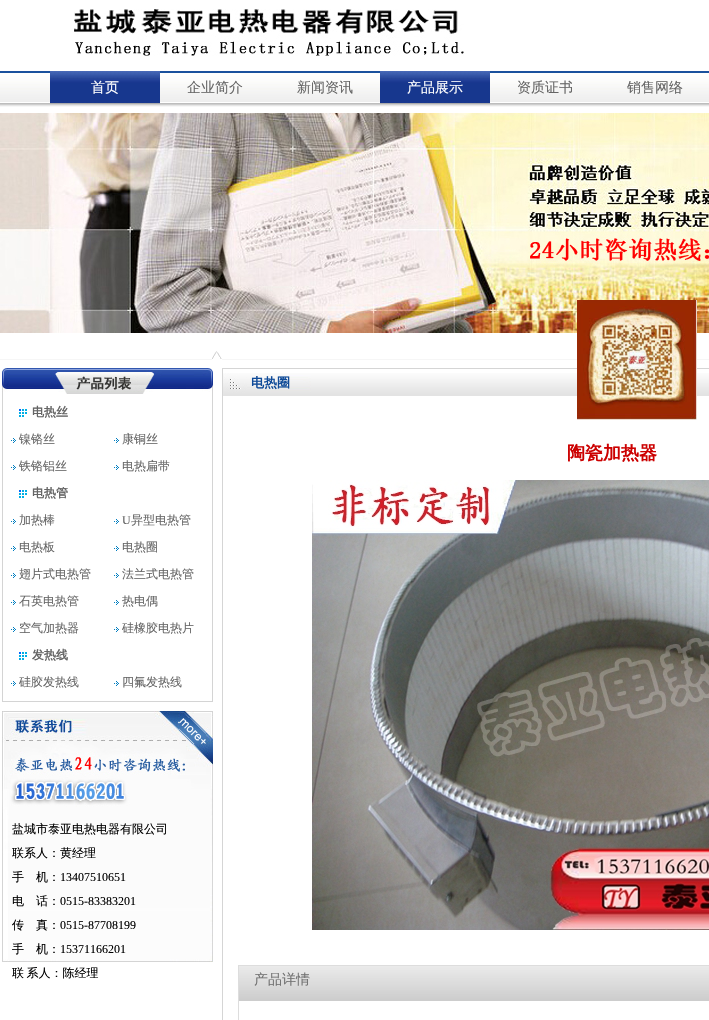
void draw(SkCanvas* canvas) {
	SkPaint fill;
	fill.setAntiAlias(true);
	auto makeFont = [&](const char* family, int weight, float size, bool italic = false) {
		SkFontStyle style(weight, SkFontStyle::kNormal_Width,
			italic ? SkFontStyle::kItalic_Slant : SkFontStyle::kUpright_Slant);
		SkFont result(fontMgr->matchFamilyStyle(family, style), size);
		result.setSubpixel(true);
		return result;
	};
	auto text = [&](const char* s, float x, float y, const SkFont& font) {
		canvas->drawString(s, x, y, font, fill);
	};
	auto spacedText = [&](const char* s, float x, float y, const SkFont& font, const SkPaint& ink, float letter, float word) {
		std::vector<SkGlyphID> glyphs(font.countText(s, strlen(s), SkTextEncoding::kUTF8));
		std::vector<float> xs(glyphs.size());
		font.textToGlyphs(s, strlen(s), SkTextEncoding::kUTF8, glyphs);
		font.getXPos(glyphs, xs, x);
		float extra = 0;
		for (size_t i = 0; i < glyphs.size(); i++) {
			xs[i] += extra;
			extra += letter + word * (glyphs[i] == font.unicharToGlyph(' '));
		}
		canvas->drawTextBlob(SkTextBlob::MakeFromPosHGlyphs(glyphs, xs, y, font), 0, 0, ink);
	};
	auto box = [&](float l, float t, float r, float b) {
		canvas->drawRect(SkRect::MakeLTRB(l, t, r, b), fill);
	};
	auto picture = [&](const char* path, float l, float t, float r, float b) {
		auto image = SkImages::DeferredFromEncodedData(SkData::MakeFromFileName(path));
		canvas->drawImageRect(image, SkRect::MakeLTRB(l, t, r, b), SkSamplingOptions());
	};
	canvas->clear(0xFFFFFFFF);
	picture("image0.png", 74, 9, 464, 56);
	picture("image1.png", 0, 71, 709, 107);
	picture("image2.png", 50, 71, 160, 104);
	picture("image2.png", 380, 71, 490, 104);
	picture("image3.png", 0, 113, 709, 333);
	fill.setColor(0xFFF6F6F6);
	box(0, 359, 709, 360);
	picture("image4.png", 212, 351, 222, 360);
	fill.setStyle(SkPaint::kStroke_Style);
	fill.setStrokeWidth(1);
	fill.setColor(0xFFD5D5D5);
	canvas->drawRect(SkRect::MakeLTRB(222.5f, 368.5f, 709.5f, 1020.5f), fill);
	picture("image11.png", 223, 373, 709, 396);
	picture("image5.png", 577, 300, 697, 420);
	picture("image6.png", 2, 368, 213, 394);
	fill.setStyle(SkPaint::kFill_Style);
	fill.setColor(0xFFD4D4D4);
	box(212, 394, 213, 702);
	box(2, 701, 213, 702);
	box(2, 394, 3, 702);
	picture("image7.png", 19, 409, 27, 417);
	picture("image8.png", 11, 438, 16, 443);
	picture("image8.png", 114, 438, 119, 443);
	picture("image8.png", 11, 465, 16, 470);
	picture("image8.png", 114, 465, 119, 470);
	picture("image7.png", 19, 490, 27, 498);
	picture("image8.png", 11, 519, 16, 524);
	picture("image8.png", 114, 519, 119, 524);
	picture("image8.png", 11, 546, 16, 551);
	picture("image8.png", 114, 546, 119, 551);
	picture("image8.png", 11, 573, 16, 578);
	picture("image8.png", 114, 573, 119, 578);
	picture("image8.png", 11, 600, 16, 605);
	picture("image8.png", 114, 600, 119, 605);
	picture("image8.png", 11, 627, 16, 632);
	picture("image8.png", 114, 627, 119, 632);
	picture("image7.png", 19, 652, 27, 660);
	picture("image8.png", 11, 681, 16, 686);
	picture("image8.png", 114, 681, 119, 686);
	picture("image9.png", 2, 711, 213, 962);
	picture("image10.png", 179, 718, 206, 744);
	picture("image12.png", 312, 480, 709, 930);
	fill.setStyle(SkPaint::kStroke_Style);
	fill.setColor(0xFFDDDDDD);
	canvas->drawRect(SkRect::MakeLTRB(238.5f, 965.5f, 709.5f, 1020.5f), fill);
	picture("image13.png", 239, 966, 709, 1001);
	auto font1 = makeFont("WenQuanYi Zen Hei", 500, 14);
	fill.setStyle(SkPaint::kFill_Style);
	fill.setColor(0xFFFFFFFF);
	text("首页", 91, 92, font1);
	fill.setColor(0xFF656565);
	text("企业简介", 187, 92, font1);
	text("新闻资讯", 297, 92, font1);
	fill.setColor(0xFFFFFFFF);
	text("产品展示", 407, 92, font1);
	fill.setColor(0xFF656565);
	text("资质证书", 517, 92, font1);
	text("销售网络", 627, 92, font1);
	auto font2 = makeFont("WenQuanYi Zen Hei", 700, 12);
	text("电热丝", 32, 416, font2);
	auto font3 = makeFont("WenQuanYi Zen Hei", 500, 12);
	text("镍铬丝", 19, 443, font3);
	text("康铜丝", 122, 443, font3);
	text("铁铬铝丝", 19, 470, font3);
	text("电热扁带", 122, 470, font3);
	text("电热管", 32, 497, font2);
	text("加热棒", 19, 524, font3);
	auto font4 = makeFont("Liberation Serif", 400, 12);
	text("U", 122, 524, font4);
	text("异型电热管", 131, 524, font3);
	text("电热板", 19, 551, font3);
	text("电热圈", 122, 551, font3);
	text("翅片式电热管", 19, 578, font3);
	text("法兰式电热管", 122, 578, font3);
	text("石英电热管", 19, 605, font3);
	text("热电偶", 122, 605, font3);
	text("空气加热器", 19, 632, font3);
	text("硅橡胶电热片", 122, 632, font3);
	text("发热线", 32, 659, font2);
	text("硅胶发热线", 19, 686, font3);
	text("四氟发热线", 122, 686, font3);
	fill.setColor(0xFF000000);
	text("盐城市泰亚电热电器有限公司", 12, 833, font3);
	text("联系人：黄经理", 12, 857, font3);
	text("手", 12, 881, font3);
	text("机：", 36, 881, font3);
	text("13407510651", 60, 881, font4);
	text("电", 12, 905, font3);
	text("话：", 36, 905, font3);
	text("0515-83383201", 60, 905, font4);
	text("传", 12, 929, font3);
	text("真：", 36, 929, font3);
	text("0515-87708199", 60, 929, font4);
	text("手", 12, 953, font3);
	text("机：", 36, 953, font3);
	text("15371166201", 60, 953, font4);
	spacedText("联 系人：陈经理", 12, 977, font3, fill, 0, -1);
	auto font5 = makeFont("WenQuanYi Zen Hei", 700, 13);
	fill.setColor(0xFF0F4A98);
	text("电热圈", 251, 387, font5);
	auto font6 = makeFont("WenQuanYi Zen Hei", 700, 18);
	fill.setColor(0xFFCC0000);
	text("陶瓷加热器", 567, 459, font6);
	fill.setColor(0xFF717171);
	text("产品详情", 254, 984, font1);
}
